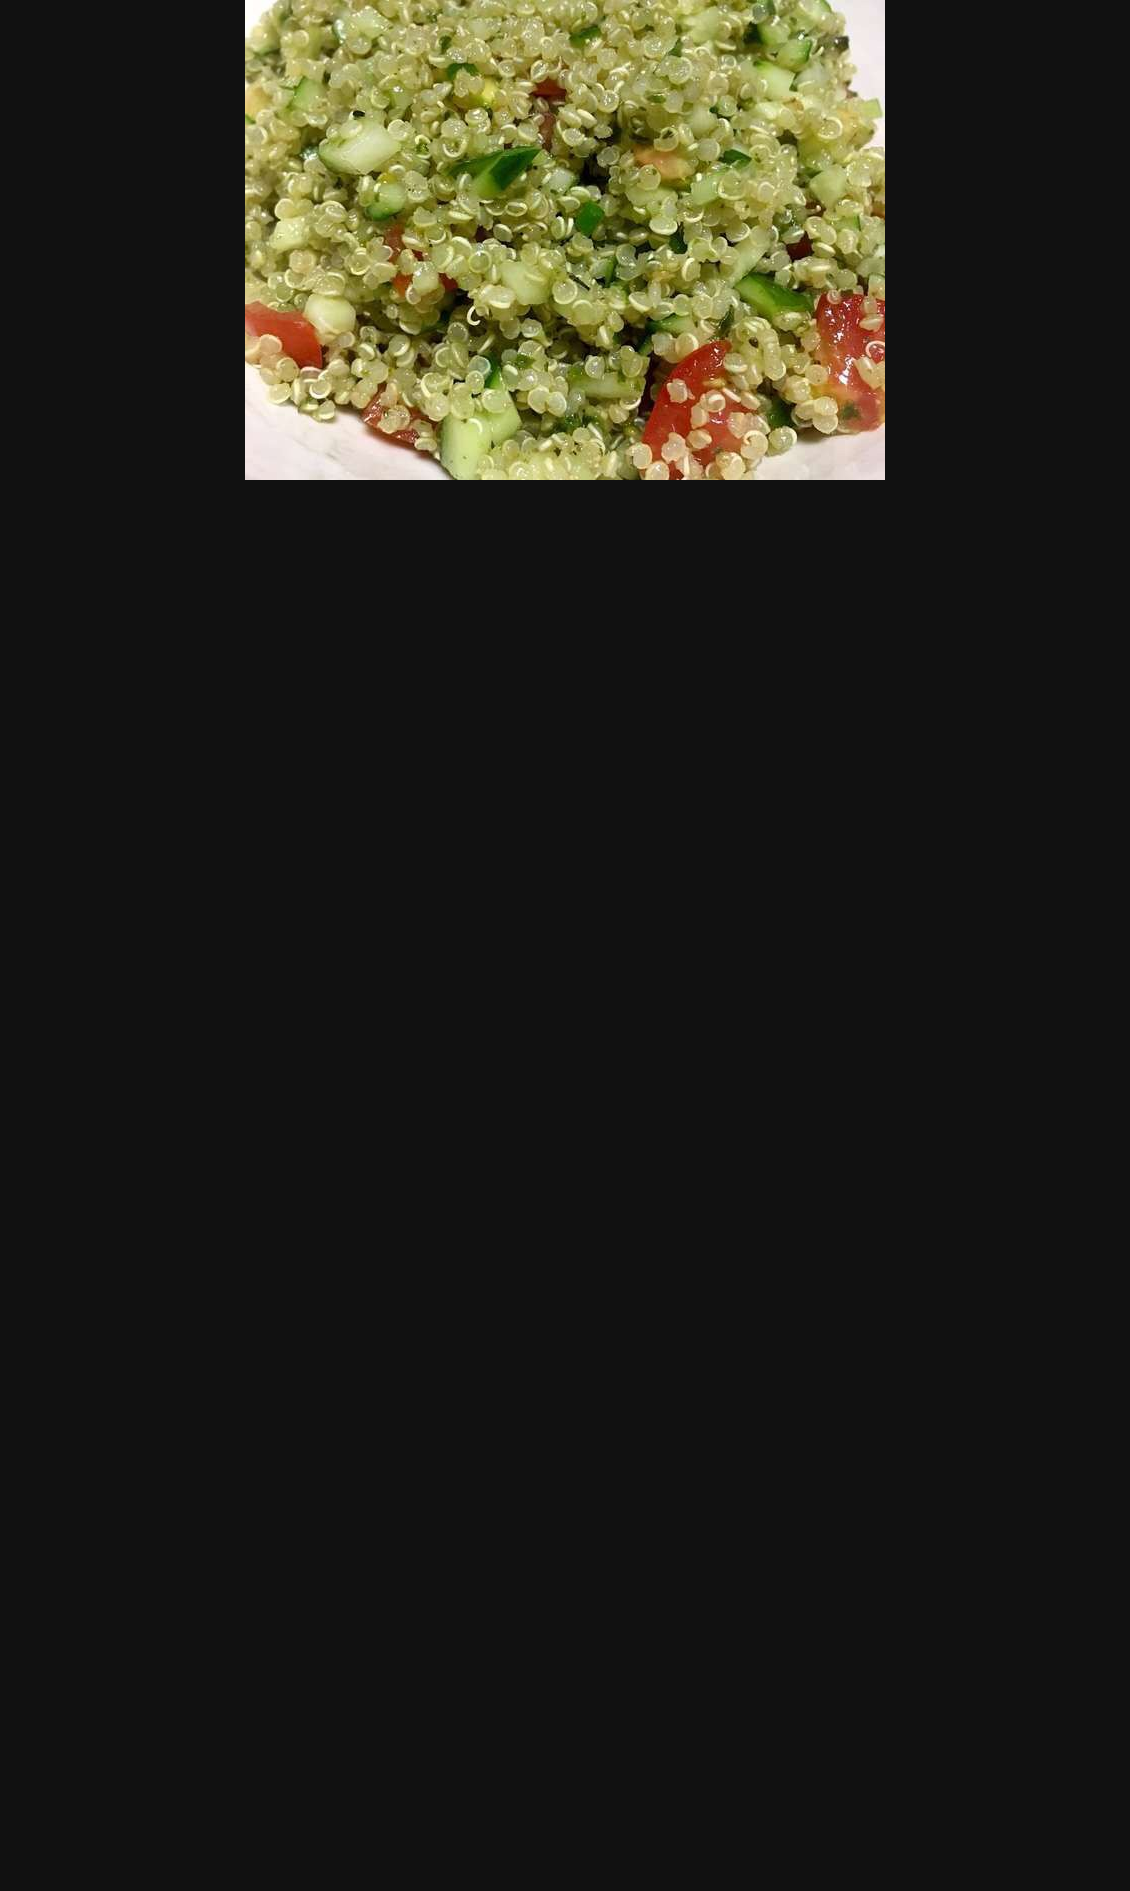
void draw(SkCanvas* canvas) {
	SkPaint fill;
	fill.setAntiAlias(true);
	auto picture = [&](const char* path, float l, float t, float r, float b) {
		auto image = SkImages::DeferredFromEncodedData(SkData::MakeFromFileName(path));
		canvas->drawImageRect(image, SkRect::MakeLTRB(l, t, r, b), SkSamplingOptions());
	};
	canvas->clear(0xFF111111);
	picture("image0.png", 245, 0, 885, 480);
}
